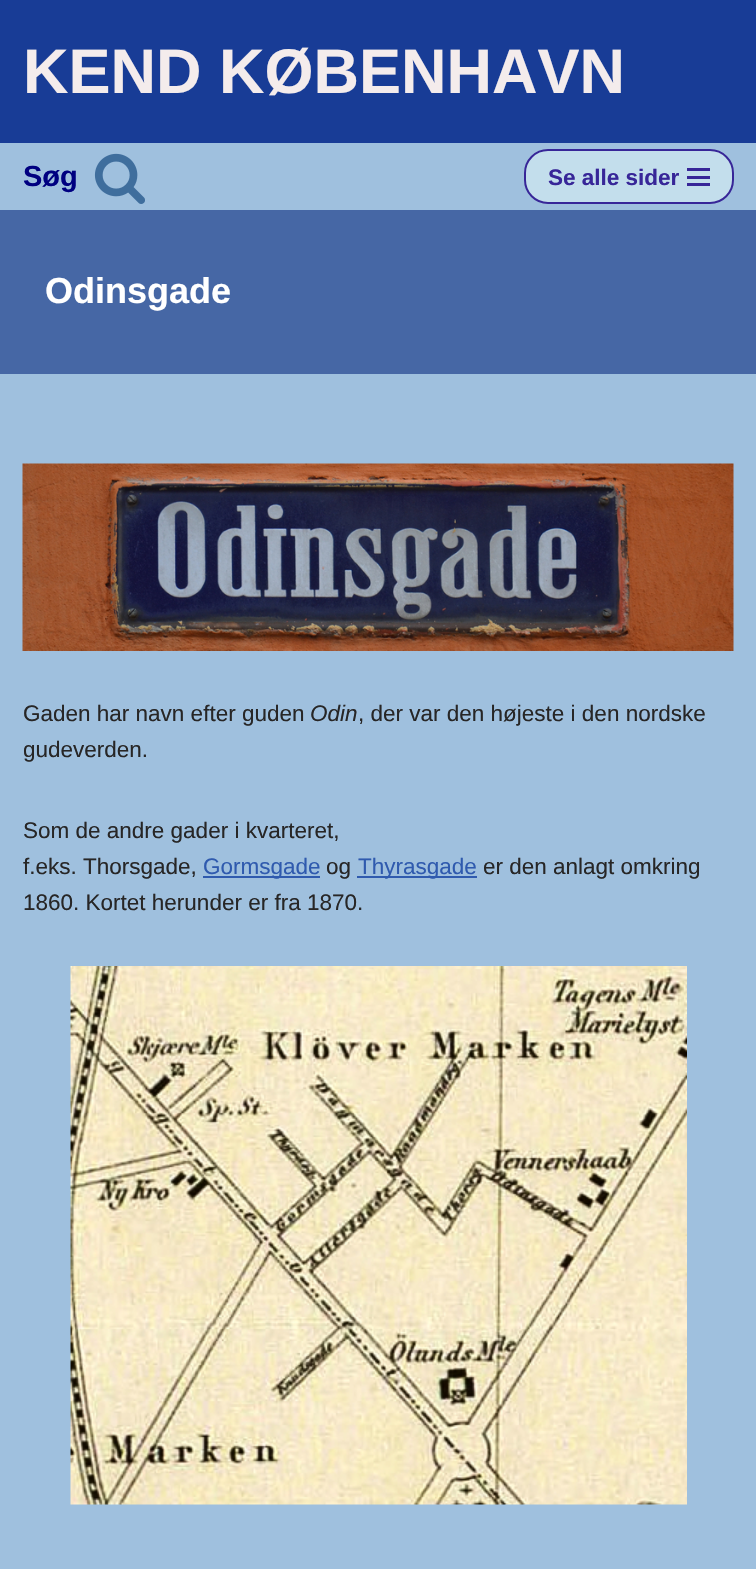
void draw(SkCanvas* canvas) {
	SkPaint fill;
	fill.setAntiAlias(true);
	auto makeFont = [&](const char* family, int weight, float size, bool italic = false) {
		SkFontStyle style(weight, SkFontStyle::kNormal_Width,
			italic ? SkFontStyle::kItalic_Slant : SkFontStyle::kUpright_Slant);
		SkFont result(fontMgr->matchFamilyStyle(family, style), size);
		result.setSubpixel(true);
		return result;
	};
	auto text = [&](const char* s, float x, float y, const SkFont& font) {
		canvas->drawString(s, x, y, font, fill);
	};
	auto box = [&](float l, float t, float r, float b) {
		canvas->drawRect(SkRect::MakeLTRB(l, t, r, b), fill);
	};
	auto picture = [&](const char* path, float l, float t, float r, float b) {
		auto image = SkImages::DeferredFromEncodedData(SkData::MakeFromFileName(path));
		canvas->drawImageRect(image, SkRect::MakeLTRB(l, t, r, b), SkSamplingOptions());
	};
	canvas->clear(0xFF9FC0DE);
	fill.setColor(0xFF4667A5);
	box(0, 210, 756, 374);
	fill.setColor(0xFF183C96);
	box(0, 0, 756, 143);
	picture("image0.png", 94, 153, 145, 204);
	fill.setColor(0xFFC3DEEC);
	canvas->drawRoundRect(SkRect::MakeLTRB(525, 150, 733, 203), 23, 23, fill);
	fill.setStyle(SkPaint::kStroke_Style);
	fill.setStrokeWidth(2);
	fill.setColor(0xFF372698);
	canvas->drawRoundRect(SkRect::MakeLTRB(525, 150, 733, 203), 23, 23, fill);
	fill.setStyle(SkPaint::kFill_Style);
	box(687, 168, 710, 171);
	box(687, 176, 710, 179);
	box(687, 183, 710, 186);
	picture("image1.png", 22, 463, 734, 651);
	fill.setColor(0xFF2F5AAE);
	box(203, 876, 320, 878);
	box(357, 876, 477, 878);
	picture("image2.png", 70, 966, 687, 1505);
	auto font1 = makeFont("Liberation Sans", 700, 63);
	fill.setColor(0xFFF4ECEC);
	text("KEND KØBENHAVN", 23, 93, font1);
	auto font2 = makeFont("Liberation Sans", 700, 29);
	fill.setColor(0xFF000080);
	text("Søg", 23, 186, font2);
	auto font3 = makeFont("Liberation Sans", 700, 22.5f);
	fill.setColor(0xFF372698);
	text("Se alle sider", 548, 185, font3);
	auto font4 = makeFont("Liberation Sans", 700, 36);
	fill.setColor(0xFFFFFFFF);
	text("Odinsgade", 45, 303, font4);
	auto font5 = makeFont("Liberation Sans", 400, 22.5f);
	fill.setColor(0xFF272626);
	text("Gaden har navn efter guden", 23, 721, font5);
	auto font6 = makeFont("Liberation Sans", 400, 22.5f, true);
	text("Odin", 310, 721, font6);
	text(", der var den højeste i den nordske", 358, 721, font5);
	text("gudeverden.", 23, 757, font5);
	text("Som de andre gader i kvarteret,", 23, 838, font5);
	text("f.eks. Thorsgade,", 23, 874, font5);
	fill.setColor(0xFF2F5AAE);
	text("Gormsgade", 203, 874, font5);
	fill.setColor(0xFF272626);
	text("og", 326, 874, font5);
	fill.setColor(0xFF2F5AAE);
	text("Thyrasgade", 358, 874, font5);
	fill.setColor(0xFF272626);
	text("er den anlagt omkring", 483, 874, font5);
	text("1860. Kortet herunder er fra 1870.", 23, 910, font5);
}
